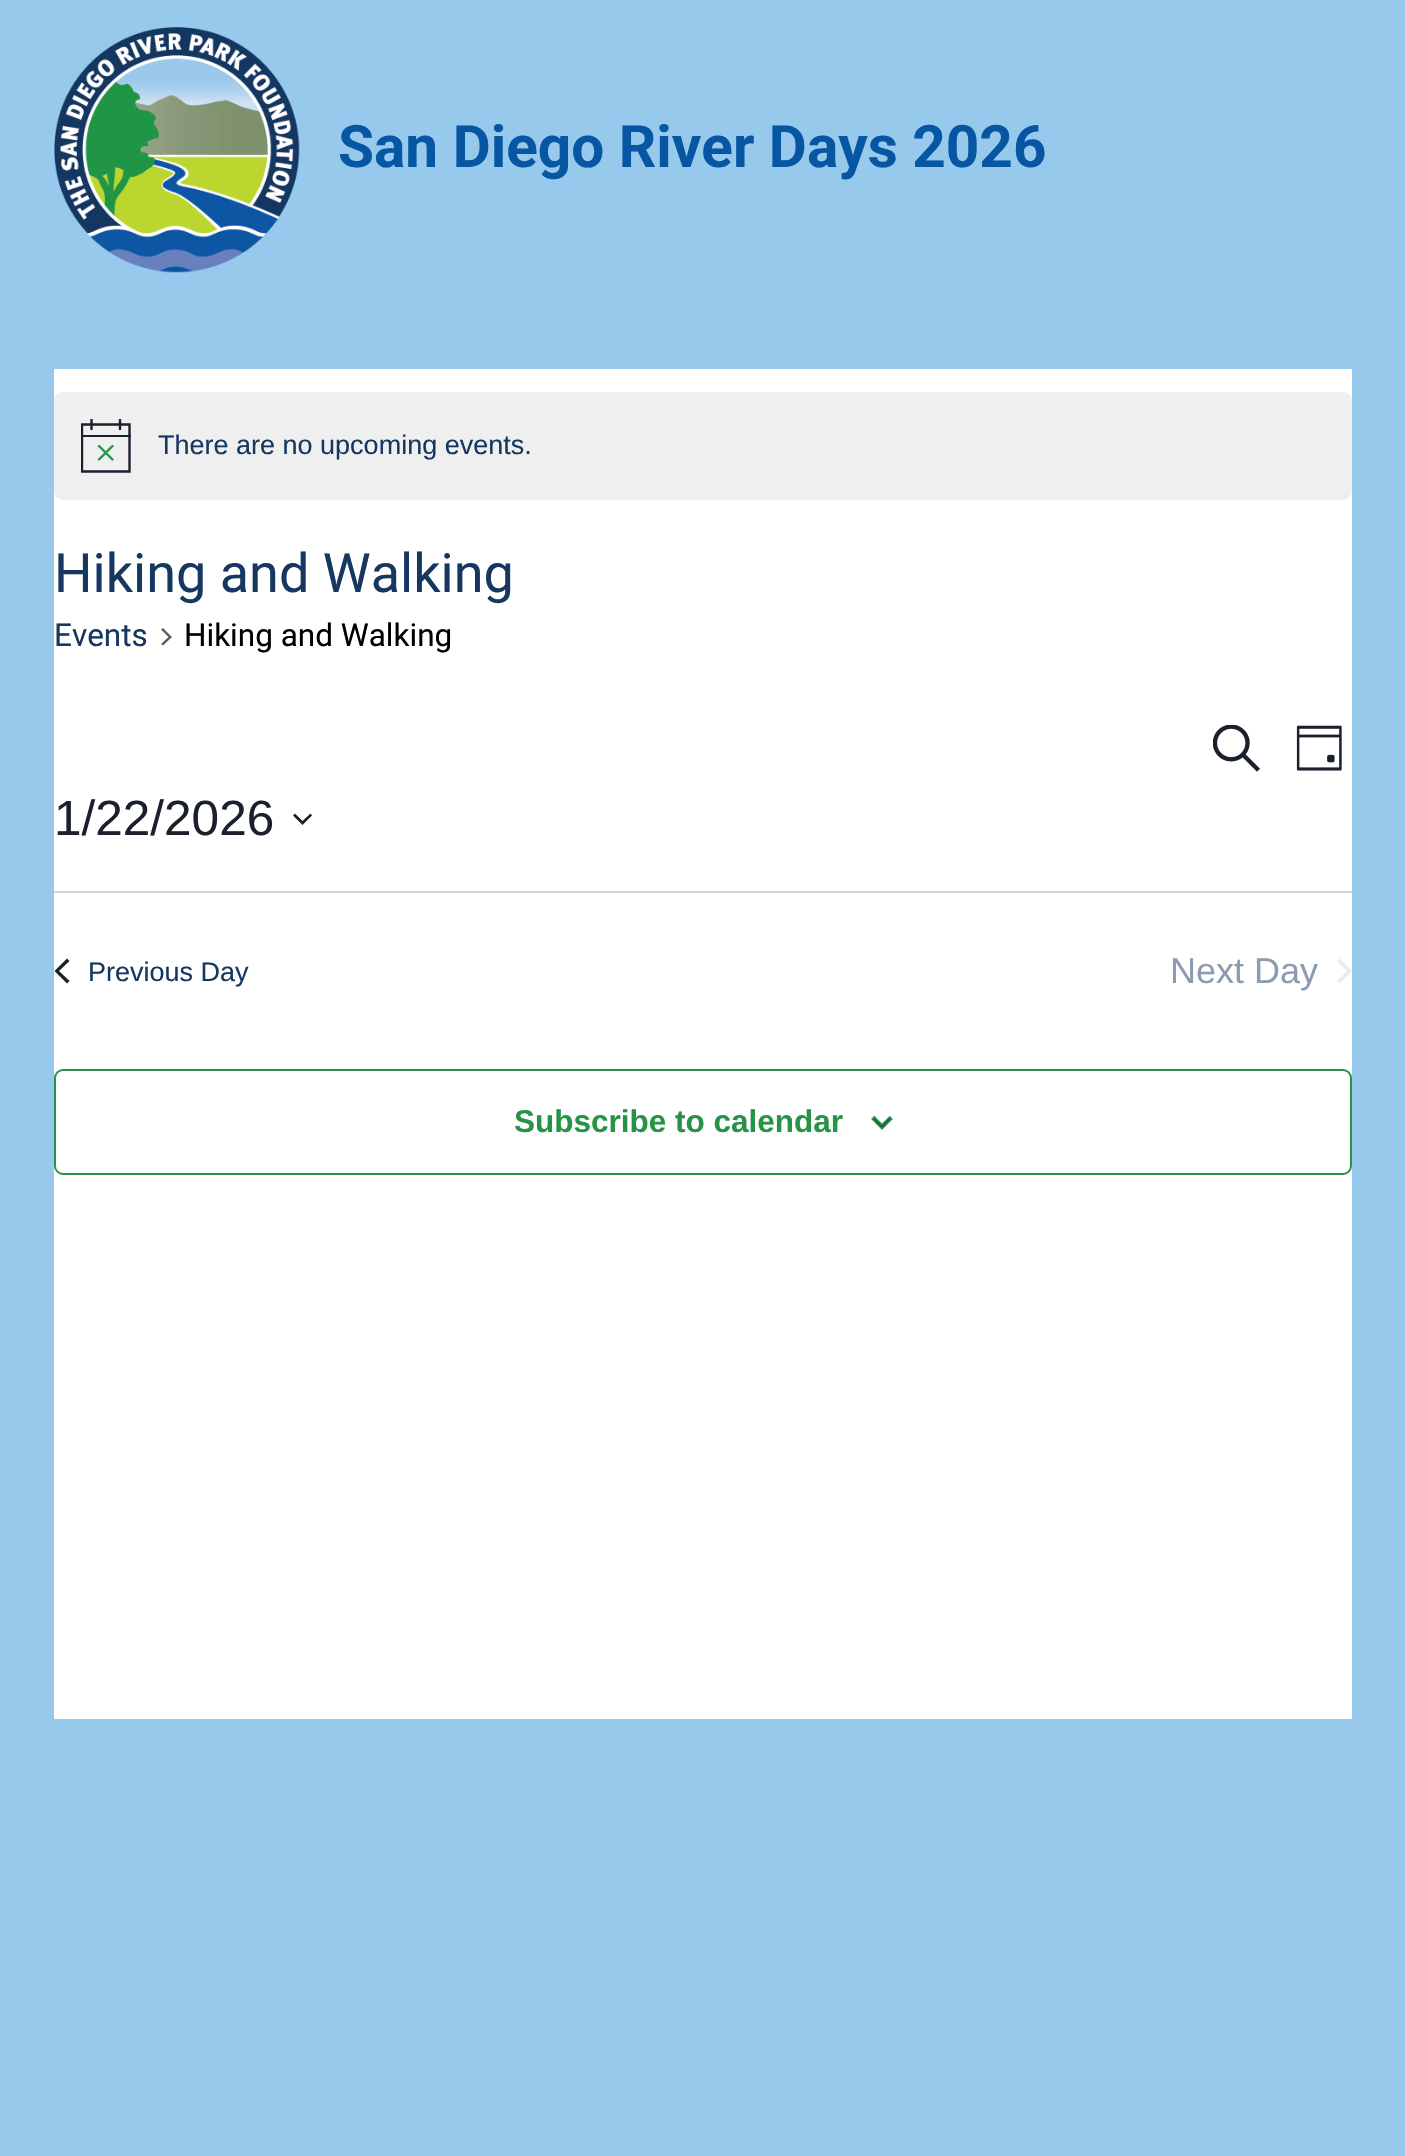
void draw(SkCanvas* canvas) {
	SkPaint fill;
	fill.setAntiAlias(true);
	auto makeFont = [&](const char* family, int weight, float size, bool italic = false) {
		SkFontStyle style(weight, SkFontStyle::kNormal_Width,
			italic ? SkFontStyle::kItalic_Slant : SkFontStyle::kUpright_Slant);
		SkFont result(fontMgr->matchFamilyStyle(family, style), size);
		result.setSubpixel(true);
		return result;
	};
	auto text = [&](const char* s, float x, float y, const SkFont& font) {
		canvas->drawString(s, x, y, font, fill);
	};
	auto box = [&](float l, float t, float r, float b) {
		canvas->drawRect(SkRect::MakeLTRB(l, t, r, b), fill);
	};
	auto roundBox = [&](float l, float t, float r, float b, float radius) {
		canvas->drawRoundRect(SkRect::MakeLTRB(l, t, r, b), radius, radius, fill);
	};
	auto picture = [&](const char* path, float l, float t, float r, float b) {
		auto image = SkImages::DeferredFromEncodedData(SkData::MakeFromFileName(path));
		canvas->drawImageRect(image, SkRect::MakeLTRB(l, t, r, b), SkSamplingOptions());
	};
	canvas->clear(0xFF97C9EC);
	picture("image0.png", 54, 27, 300, 273);
	fill.setColor(0xFFFFFFFF);
	box(54, 369, 1352, 1719);
	fill.setColor(0xFFEFEFF0);
	roundBox(54, 392, 1352, 500, 9);
	canvas->save();
	canvas->clipRect(SkRect::MakeLTRB(81, 419, 131, 473));
	fill.setStyle(SkPaint::kStroke_Style);
	fill.setStrokeWidth(2.4f);
	fill.setColor(0xFF1A202C);
	canvas->drawPath(SkPathBuilder().moveTo(82, 424.5f).lineTo(129.5f, 424.5f).lineTo(129.5f, 471.5f).lineTo(82, 471.5f).close().detach(), fill);
	canvas->restore();
	fill.setStrokeCap(SkPaint::kRound_Cap);
	fill.setColor(0xFF269346);
	canvas->drawPath(SkPathBuilder().moveTo(99, 446).lineTo(112.5f, 459.5f).moveTo(112.5f, 446).lineTo(99, 459.5f).detach(), fill);
	canvas->save();
	canvas->clipRect(SkRect::MakeLTRB(81, 419, 131, 473));
	fill.setColor(0xFF1A202C);
	canvas->drawPath(SkPathBuilder().moveTo(91.5f, 419.5f).lineTo(91.5f, 429).moveTo(120, 419.5f).lineTo(120, 429).detach(), fill);
	canvas->restore();
	fill.setStyle(SkPaint::kFill_Style);
	box(81, 435, 131, 437);
	fill.setColor(0xFF5D5D5D);
	canvas->drawPath(SkPathBuilder().moveTo(161, 629.5f).lineTo(163, 628).lineTo(172, 637).lineTo(163, 645.5f).lineTo(161, 644).lineTo(168.5f, 637).close().detach(), fill);
	picture("image1.png", 1213, 725, 1260, 772);
	picture("image2.png", 1296, 725, 1342, 771);
	fill.setColor(0xFF1A202C);
	canvas->drawPath(SkPathBuilder(SkPathFillType::kEvenOdd).moveTo(295, 813.5f).lineTo(302.5f, 821).lineTo(310.5f, 813.5f).lineTo(312, 815.5f).lineTo(302.5f, 825).lineTo(293, 815.5f).close().detach(), fill);
	fill.setColor(0xFFCBD5E0);
	box(54, 891, 1352, 893);
	fill.setColor(0xFF1A202C);
	canvas->drawPath(SkPathBuilder().moveTo(69.5f, 981).lineTo(67, 983.5f).lineTo(54.5f, 971).lineTo(67, 958.5f).lineTo(69.5f, 961).lineTo(59, 971).close().detach(), fill);
	fill.setColor(0xFFEAEAEA);
	canvas->drawPath(SkPathBuilder().moveTo(1337, 961).lineTo(1339.5f, 958.5f).lineTo(1352, 971).lineTo(1339.5f, 983.5f).lineTo(1337, 981).lineTo(1347, 971).close().detach(), fill);
	fill.setStyle(SkPaint::kStroke_Style);
	fill.setStrokeWidth(2);
	fill.setStrokeCap(SkPaint::kButt_Cap);
	fill.setColor(0xFF269346);
	canvas->drawRoundRect(SkRect::MakeLTRB(55, 1070, 1351, 1174), 8, 8, fill);
	picture("image3.png", 871, 1116, 893, 1130);
	auto font1 = makeFont("Roboto", 700, 58.5f);
	fill.setStyle(SkPaint::kFill_Style);
	fill.setColor(0xFF0756A3);
	text("San Diego River Days 2026", 338, 167, font1);
	auto font2 = makeFont("Liberation Sans", 400, 27);
	fill.setColor(0xFF163860);
	text("There are no upcoming events.", 158, 454, font2);
	auto font3 = makeFont("Roboto", 400, 54);
	text("Hiking and Walking", 54, 592, font3);
	auto font4 = makeFont("Roboto", 400, 31.5f);
	text("Events", 54, 646, font4);
	fill.setColor(0xFF000000);
	text("Hiking and Walking", 184, 646, font4);
	auto font5 = makeFont("Liberation Sans", 400, 49.5f);
	fill.setColor(0xFF1A202C);
	text("1/22/2026", 54, 835, font5);
	fill.setColor(0xFF163860);
	text("Previous Day", 88, 981, font2);
	auto font6 = makeFont("Liberation Sans", 400, 36);
	fill.setColor(0xFF8B9CB0);
	text("Next Day", 1170, 983, font6);
	auto font7 = makeFont("Liberation Sans", 700, 31.5f);
	fill.setColor(0xFF269346);
	text("Subscribe to calendar", 514, 1132, font7);
}
